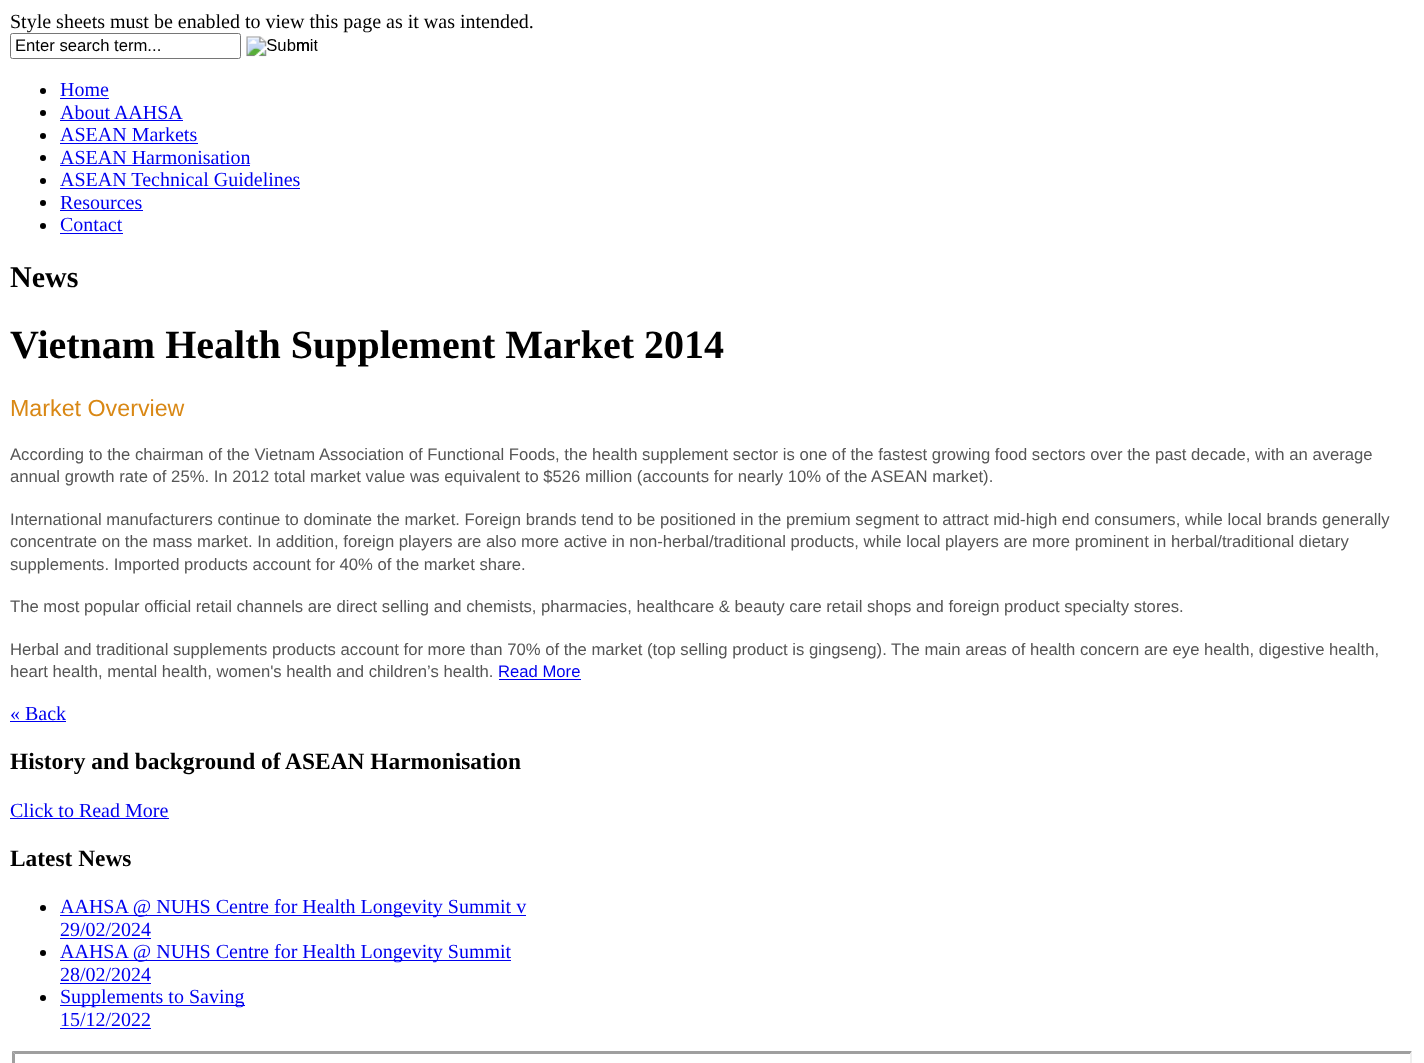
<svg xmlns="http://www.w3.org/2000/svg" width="1424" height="1063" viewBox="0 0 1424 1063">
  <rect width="100%" height="100%" fill="#fff"/>
  <rect x="10.5" y="33.5" width="230" height="25" rx="2" fill="none" stroke="#767676"/>
  <image x="246" y="36" width="72" height="21" href="img/1.png"/>
  <circle cx="43" cy="91" r="3" fill="#000"/>
  <path d="M60 98h49v1H60z" fill="#00e"/>
  <circle cx="43" cy="113" r="3" fill="#000"/>
  <path d="M60 120h123v1H60z" fill="#00e"/>
  <circle cx="43" cy="136" r="3" fill="#000"/>
  <path d="M60 143h138v1H60z" fill="#00e"/>
  <circle cx="43" cy="158" r="3" fill="#000"/>
  <path d="M60 165h190v1H60z" fill="#00e"/>
  <circle cx="43" cy="181" r="3" fill="#000"/>
  <path d="M60 188h240v1H60z" fill="#00e"/>
  <circle cx="43" cy="203" r="3" fill="#000"/>
  <path d="M60 210h83v1H60z" fill="#00e"/>
  <circle cx="43" cy="226" r="3" fill="#000"/>
  <path d="M60 233h63v1H60z" fill="#00e"/>
  <path d="M499 679h82v1H499z" fill="#00e"/>
  <path d="M10 721h56v1H10z" fill="#00e"/>
  <path d="M10 818h159v1H10z" fill="#00e"/>
  <circle cx="43" cy="908" r="3" fill="#000"/>
  <path d="M60 915h466v1H60z" fill="#00e"/>
  <path d="M60 938h91v1H60z" fill="#00e"/>
  <circle cx="43" cy="953" r="3" fill="#000"/>
  <path d="M60 960h451v1H60z" fill="#00e"/>
  <path d="M60 983h91v1H60z" fill="#00e"/>
  <circle cx="43" cy="998" r="3" fill="#000"/>
  <path d="M60 1005h185v1H60z" fill="#00e"/>
  <path d="M60 1028h91v1H60z" fill="#00e"/>
  <path d="M12 1051H1412L1410 1054H15Z" fill="#9f9f9f"/>
  <path d="M1412 1051V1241L1410 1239V1054Z" fill="#efefef"/>
  <path d="M12 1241V1051L15 1054V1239Z" fill="#9f9f9f"/>
  <text x="10" y="28" font-family="Liberation Serif" font-size="20" fill="#000">Style sheets must be enabled to view this page as it was intended.</text>
  <g font-family="Liberation Sans" font-size="16.67" fill="#000">
    <text x="15" y="51">Enter search term...</text>
    <text x="296" y="51">m</text>
  </g>
  <g font-family="Liberation Serif" font-size="20" fill="#00e">
    <text x="60" y="96">Home</text>
    <text x="60" y="119">About AAHSA</text>
    <text x="60" y="141">ASEAN Markets</text>
    <text x="60" y="164">ASEAN Harmonisation</text>
    <text x="60" y="186">ASEAN Technical Guidelines</text>
    <text x="60" y="209">Resources</text>
    <text x="60" y="231">Contact</text>
  </g>
  <text x="10" y="287" font-family="Liberation Serif" font-size="30" font-weight="bold" fill="#000">News</text>
  <text x="10" y="358" font-family="Liberation Serif" font-size="40" font-weight="bold" fill="#000">Vietnam Health Supplement Market 2014</text>
  <text x="10" y="416" font-family="Liberation Sans" font-size="23.25" fill="#d98815">Market Overview</text>
  <g font-family="Liberation Sans" font-size="16.67" fill="#565656">
    <text x="10" y="460">According to the chairman of the Vietnam Association of Functional Foods, the health supplement sector is one of the fastest growing food sectors over the past decade, with an average</text>
    <text x="10" y="482">annual growth rate of 25%. In 2012 total market value was equivalent to $526 million (accounts for nearly 10% of the ASEAN market).</text>
    <text x="10" y="525">International manufacturers continue to dominate the market. Foreign brands tend to be positioned in the premium segment to attract mid-high end consumers, while local brands generally</text>
    <text x="10" y="547">concentrate on the mass market. In addition, foreign players are also more active in non-herbal/traditional products, while local players are more prominent in herbal/traditional dietary</text>
    <text x="10" y="570">supplements. Imported products account for 40% of the market share.</text>
    <text x="10" y="612">The most popular official retail channels are direct selling and chemists, pharmacies, healthcare &amp; beauty care retail shops and foreign product specialty stores.</text>
    <text x="10" y="655">Herbal and traditional supplements products account for more than 70% of the market (top selling product is gingseng). The main areas of health concern are eye health, digestive health,</text>
    <text x="10" y="677">heart health, mental health, women's health and children’s health.</text>
  </g>
  <text x="498" y="677" font-family="Liberation Sans" font-size="16.67" fill="#00e">Read More</text>
  <text x="10" y="720" font-family="Liberation Serif" font-size="20" fill="#00e">« Back</text>
  <text x="10" y="769" font-family="Liberation Serif" font-size="23.4" font-weight="bold" fill="#000">History and background of ASEAN Harmonisation</text>
  <text x="10" y="817" font-family="Liberation Serif" font-size="20" fill="#00e">Click to Read More</text>
  <text x="10" y="866" font-family="Liberation Serif" font-size="23.4" font-weight="bold" fill="#000">Latest News</text>
  <g font-family="Liberation Serif" font-size="20" fill="#00e">
    <text x="60" y="913">AAHSA @ NUHS Centre for Health Longevity Summit v</text>
    <text x="60" y="936">29/02/2024</text>
    <text x="60" y="958">AAHSA @ NUHS Centre for Health Longevity Summit</text>
    <text x="60" y="981">28/02/2024</text>
    <text x="60" y="1003">Supplements to Saving</text>
    <text x="60" y="1026">15/12/2022</text>
  </g>
</svg>
